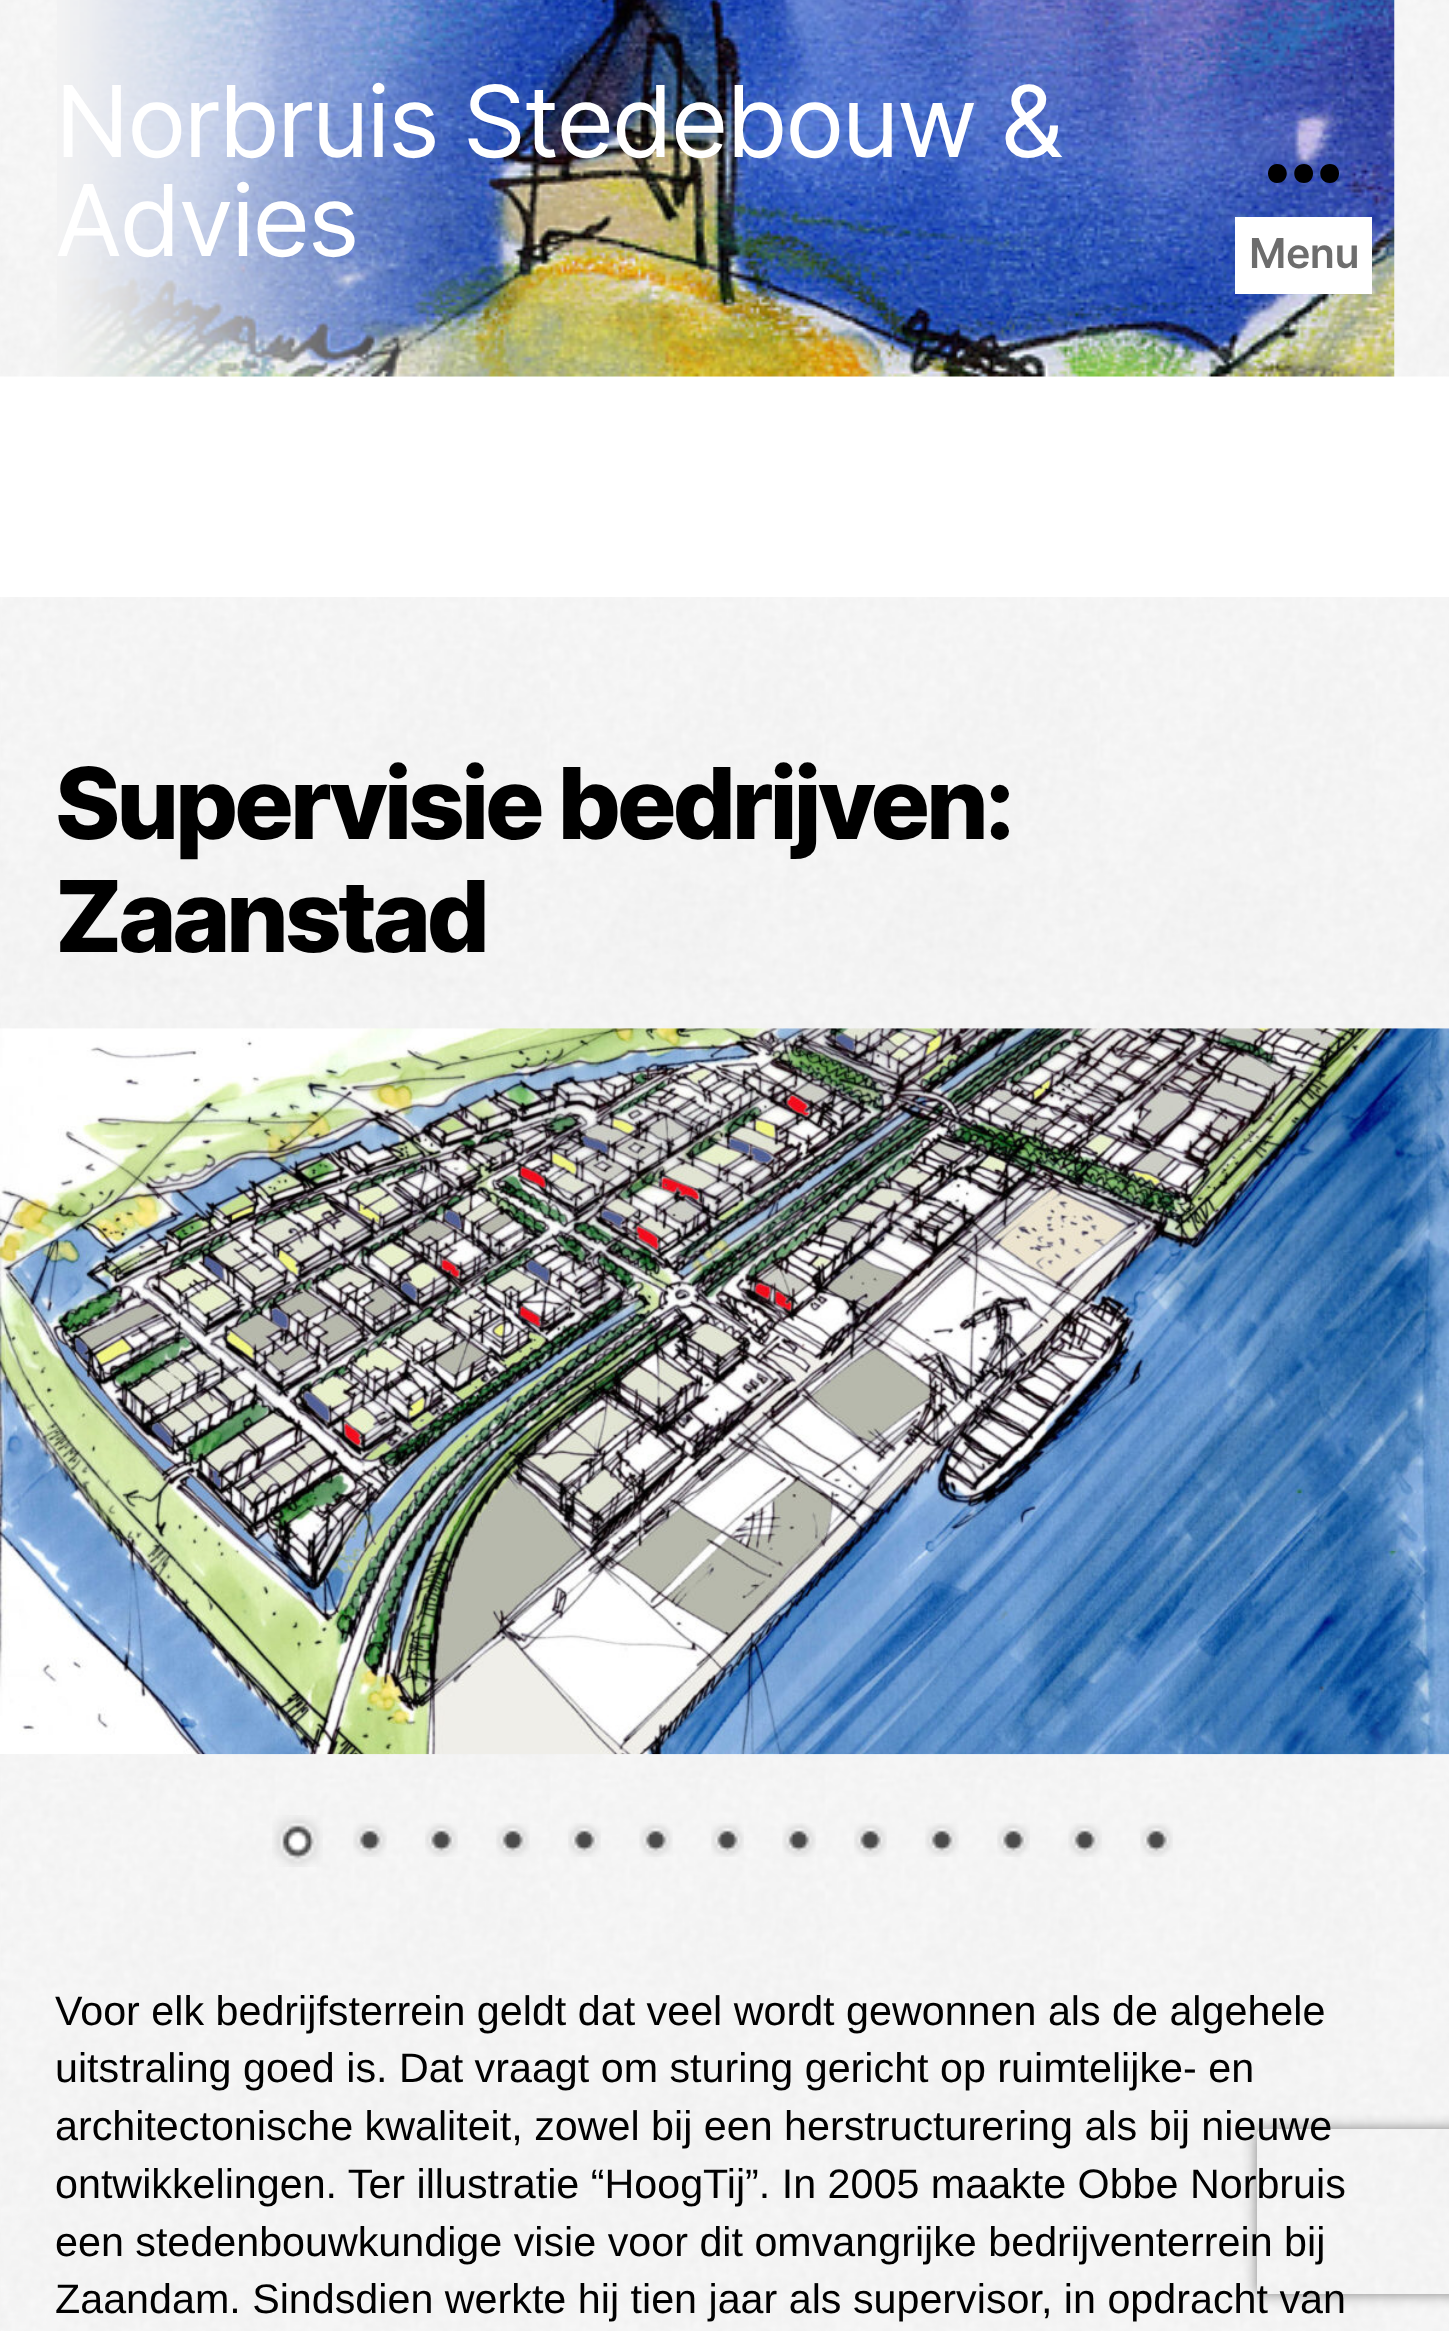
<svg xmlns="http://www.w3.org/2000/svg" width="1449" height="2331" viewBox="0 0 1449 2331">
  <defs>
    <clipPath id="clip1"><path d="M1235 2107H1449V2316H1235ZM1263 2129H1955C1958.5 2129 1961 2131.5 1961 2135V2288C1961 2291.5 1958.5 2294 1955 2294H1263C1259.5 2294 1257 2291.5 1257 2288V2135C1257 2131.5 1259.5 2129 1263 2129Z" clip-rule="evenodd"/></clipPath>
  </defs>
  <rect width="100%" height="100%" fill="#fff"/>
  <image x="0" y="597" width="1449" height="1734" href="img/1.png"/>
  <image x="0" y="0" width="1449" height="377" href="img/2.png"/>
  <image x="57" y="0" width="1338" height="377" href="img/3.png"/>
  <path d="M1277 183C1265 183 1265 164 1277 164C1290 164 1290 183 1277 183ZM1304 183C1291 183 1291 164 1304 164C1316 164 1316 183 1304 183ZM1330 183C1317 183 1317 164 1330 164C1342 164 1342 183 1330 183Z" fill="#000" fill-rule="evenodd"/>
  <path d="M1235 217h137v77H1235z" fill="#fff"/>
  <image x="0" y="1028" width="1449" height="727" href="img/4.png"/>
  <image x="272" y="1815" width="51" height="52" href="img/5.png"/>
  <image x="353" y="1823" width="34" height="34" href="img/6.png"/>
  <image x="425" y="1823" width="33" height="34" href="img/7.png"/>
  <image x="496" y="1823" width="34" height="34" href="img/8.png"/>
  <image x="568" y="1823" width="33" height="34" href="img/9.png"/>
  <image x="639" y="1823" width="34" height="34" href="img/10.png"/>
  <image x="711" y="1823" width="33" height="34" href="img/11.png"/>
  <image x="782" y="1823" width="34" height="34" href="img/12.png"/>
  <image x="854" y="1823" width="33" height="34" href="img/13.png"/>
  <image x="925" y="1823" width="34" height="34" href="img/14.png"/>
  <image x="997" y="1823" width="33" height="34" href="img/15.png"/>
  <image x="1068" y="1823" width="34" height="34" href="img/16.png"/>
  <image x="1140" y="1823" width="33" height="34" href="img/17.png"/>
  <g clip-path="url(#clip1)">
    <rect x="1257" y="2129" width="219" height="165" rx="6" fill="#808080" filter="blur(7px)"/>
  </g>
  <g font-family="Inter" font-size="99" letter-spacing="-2.4" fill="#fff">
    <text x="55" y="157">Norbruis Stedebouw &amp;</text>
    <text x="55" y="256">Advies</text>
  </g>
  <text x="1249" y="268" font-family="Inter" font-size="41.25" font-weight="600" letter-spacing="-0.5" fill="#6d6d6d">Menu</text>
  <g font-family="Inter" font-size="99" font-weight="800" letter-spacing="-4.1" fill="#000">
    <text x="55" y="839">Supervisie bedrijven:</text>
    <text x="55" y="952">Zaanstad</text>
  </g>
  <g font-family="Liberation Sans" font-size="41.25" fill="#000">
    <text x="55" y="2025">Voor elk bedrijfsterrein geldt dat veel wordt gewonnen als de algehele</text>
    <text x="55" y="2082">uitstraling goed is. Dat vraagt om sturing gericht op ruimtelijke- en</text>
    <text x="55" y="2140">architectonische kwaliteit, zowel bij een herstructurering als bij nieuwe</text>
    <text x="55" y="2198">ontwikkelingen. Ter illustratie “HoogTij”. In 2005 maakte Obbe Norbruis</text>
    <text x="55" y="2256">een stedenbouwkundige visie voor dit omvangrijke bedrijventerrein bij</text>
    <text x="55" y="2313">Zaandam. Sindsdien werkte hij tien jaar als supervisor, in opdracht van</text>
  </g>
</svg>
